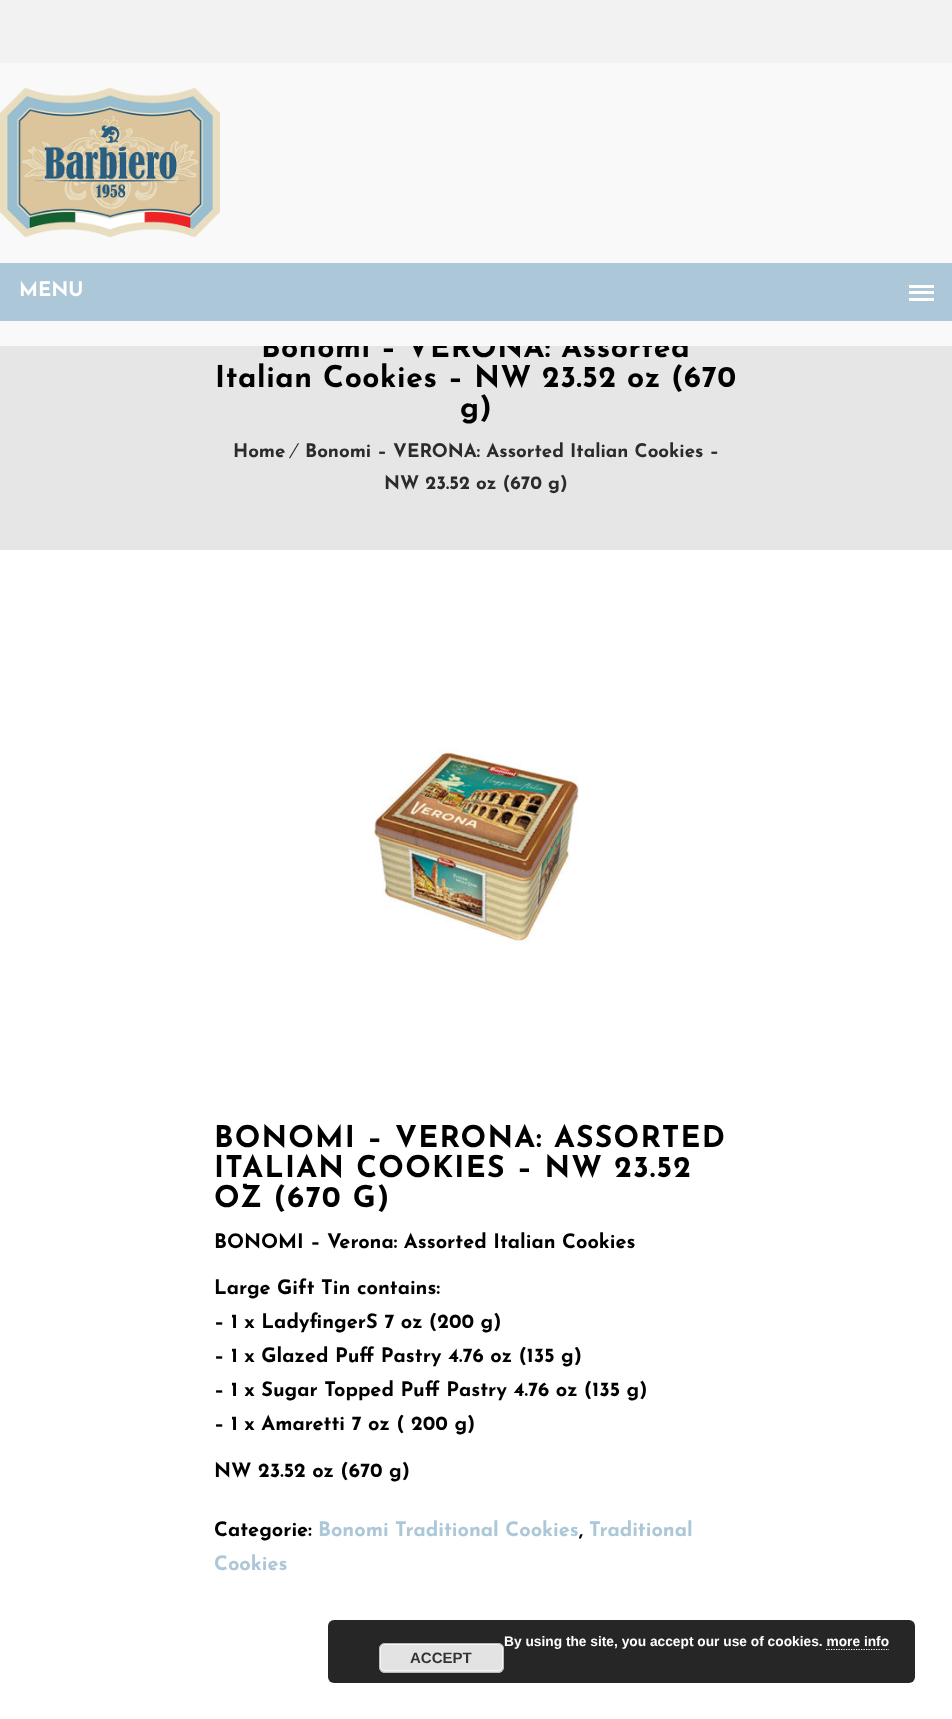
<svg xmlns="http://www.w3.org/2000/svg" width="952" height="1719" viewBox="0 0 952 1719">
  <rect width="100%" height="100%" fill="#fff"/>
  <path d="M0 0h952v63H0z" fill="#f2f2f2"/>
  <path d="M0 346h952v204H0z" fill="#e6e6e6"/>
  <path d="M298 443L299 443.5L290 458.5L289 458Z" fill="#2b2b2b"/>
  <image x="373" y="748" width="207" height="196" href="img/2.png"/>
  <rect x="328" y="1620" width="587" height="63" rx="6" fill="#262626"/>
  <path d="M826 1649.5H889" fill="none" stroke="#fff" stroke-width="1.2" stroke-dasharray="1.25 1.25"/>
  <rect x="379" y="1643" width="125" height="30" rx="6" fill="#e3e3e3"/>
  <rect x="380.5" y="1644.5" width="122" height="26" rx="4.5" fill="none" stroke="#f6f6f6"/>
  <rect x="379.5" y="1643.5" width="124" height="29" rx="5.5" fill="none" stroke="#bbb"/>
  <text x="261" y="357" font-family="Josefin Sans" font-size="30" font-weight="bold" letter-spacing="0.6" fill="#000">Bonomi – VERONA: Assorted</text>
  <path d="M0 63h952v283H0z" fill="#f9f9f9"/>
  <path d="M0 263h952v58H0z" fill="#acc7d7"/>
  <path d="M909 298h25v3H909z" fill="#fff"/>
  <path d="M909 285h25v3H909z" fill="#fff"/>
  <path d="M909 291h25v3H909z" fill="#fff"/>
  <text x="19" y="296" font-family="Josefin Sans" font-size="20" font-weight="bold" fill="#fff">MENU</text>
  <image x="0" y="87" width="220" height="151" href="img/1.png"/>
  <g font-family="Josefin Sans" font-size="30" font-weight="bold" letter-spacing="0.6" fill="#000">
    <text x="215" y="387">Italian Cookies – NW 23.52 oz (670</text>
    <text x="460" y="417">g)</text>
  </g>
  <g font-family="Josefin Sans" font-size="18.75" font-weight="bold" fill="#2b2b2b">
    <text x="233" y="457">Home</text>
    <text x="305" y="457">Bonomi – VERONA: Assorted Italian Cookies –</text>
    <text x="384" y="489">NW 23.52 oz (670 g)</text>
  </g>
  <g font-family="Josefin Sans" font-size="30" font-weight="bold" letter-spacing="1.25" fill="#000">
    <text x="214" y="1147">BONOMI – VERONA: ASSORTED</text>
    <text x="214" y="1177">ITALIAN COOKIES – NW 23.52</text>
    <text x="214" y="1207">OZ (670 G)</text>
  </g>
  <g font-family="Josefin Sans" font-size="20" font-weight="bold" fill="#000">
    <text x="214" y="1248">BONOMI – Verona: Assorted Italian Cookies</text>
    <text x="214" y="1294">Large Gift Tin contains:</text>
    <text x="214" y="1328">– 1 x LadyfingerS 7 oz (200 g)</text>
    <text x="214" y="1362">– 1 x Glazed Puff Pastry 4.76 oz (135 g)</text>
    <text x="214" y="1396">– 1 x Sugar Topped Puff Pastry 4.76 oz (135 g)</text>
    <text x="214" y="1430">– 1 x Amaretti 7 oz ( 200 g)</text>
    <text x="214" y="1477">NW 23.52 oz (670 g)</text>
    <text x="214" y="1536">Categorie:</text>
  </g>
  <text x="318" y="1536" font-family="Josefin Sans" font-size="20" font-weight="bold" fill="#acc7d7">Bonomi Traditional Cookies</text>
  <text x="579" y="1536" font-family="Josefin Sans" font-size="20" font-weight="bold" fill="#000">,</text>
  <g font-family="Josefin Sans" font-size="20" font-weight="bold" fill="#acc7d7">
    <text x="589" y="1536">Traditional</text>
    <text x="214" y="1570">Cookies</text>
  </g>
  <text x="504" y="1646" font-family="Liberation Sans" font-size="13.75" font-weight="bold" fill="#fff">By using the site, you accept our use of cookies. more info</text>
  <text x="410" y="1663" font-family="Liberation Sans" font-size="15" font-weight="bold" fill="#333">ACCEPT</text>
</svg>
